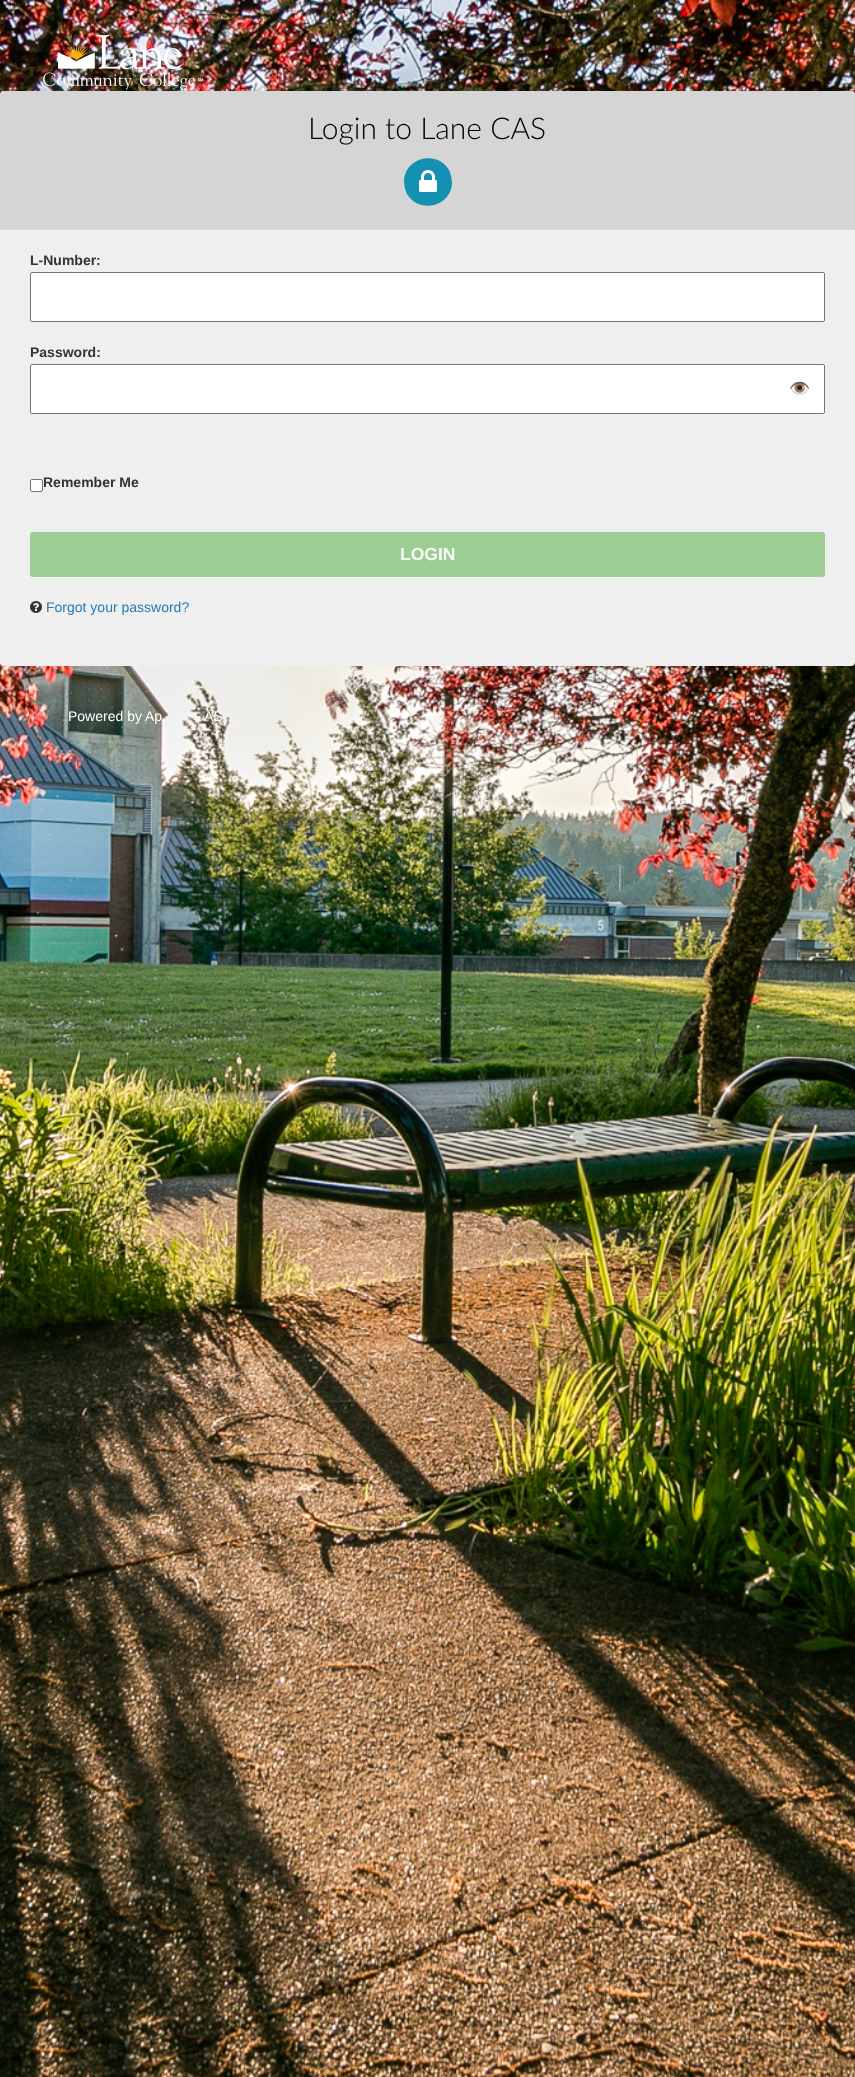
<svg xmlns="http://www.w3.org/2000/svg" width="855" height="2077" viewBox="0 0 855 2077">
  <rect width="100%" height="100%" fill="#fff"/>
  <image x="0" y="0" width="855" height="2077" href="img/1.png"/>
  <image x="43" y="35" width="161" height="55" href="img/2.png"/>
  <rect y="91" width="855" height="575" rx="4" fill="#efefef"/>
  <path d="M4 91H851C853 91 855 93 855 95V230H0V95C0 93 2 91 4 91Z" fill="#d5d5d5"/>
  <path d="M449 170C451 174 452 179 452 184C450 207 419 214 407 194C405 190 404 185 404 180C406 157 437 150 449 170Z" fill="#1490b3"/>
  <image x="419" y="170" width="18" height="22" href="img/3.png"/>
  <rect x="30.5" y="272.5" width="794" height="49" rx="1.5" fill="#fff" stroke="#767676"/>
  <rect x="30.5" y="364.5" width="794" height="49" rx="1.5" fill="#fff" stroke="#767676"/>
  <rect x="30.5" y="479.5" width="12" height="12" rx="1.5" fill="#fff" stroke="#767676"/>
  <rect x="30" y="532" width="795" height="45" rx="3" fill="#9ccd93"/>
  <image x="30" y="601" width="12" height="12" href="img/4.png"/>
  <text x="308" y="139" font-family="Lato" font-size="30" font-weight="300" fill="#000">Login to Lane CAS</text>
  <g font-family="Liberation Sans" font-size="14" font-weight="bold" fill="#333">
    <text x="30" y="265">L-Number:</text>
    <text x="30" y="357">Password:</text>
  </g>
  <text x="789" y="394" font-family="Noto Color Emoji" font-size="17" fill="#888">👁️</text>
  <text x="43" y="487" font-family="Liberation Sans" font-size="14" font-weight="bold" fill="#333">Remember Me</text>
  <text x="400" y="560" font-family="Liberation Sans" font-size="17.5" font-weight="bold" fill="#f9f9f9">LOGIN</text>
  <text x="46" y="612" font-family="Liberation Sans" font-size="14" fill="#257bb2">Forgot your password?</text>
  <g font-family="Liberation Sans" font-size="14" fill="#fff">
    <text x="68" y="721">Powered by</text>
    <text x="145" y="721">Ap</text>
    <text x="204" y="721">AS</text>
  </g>
</svg>
